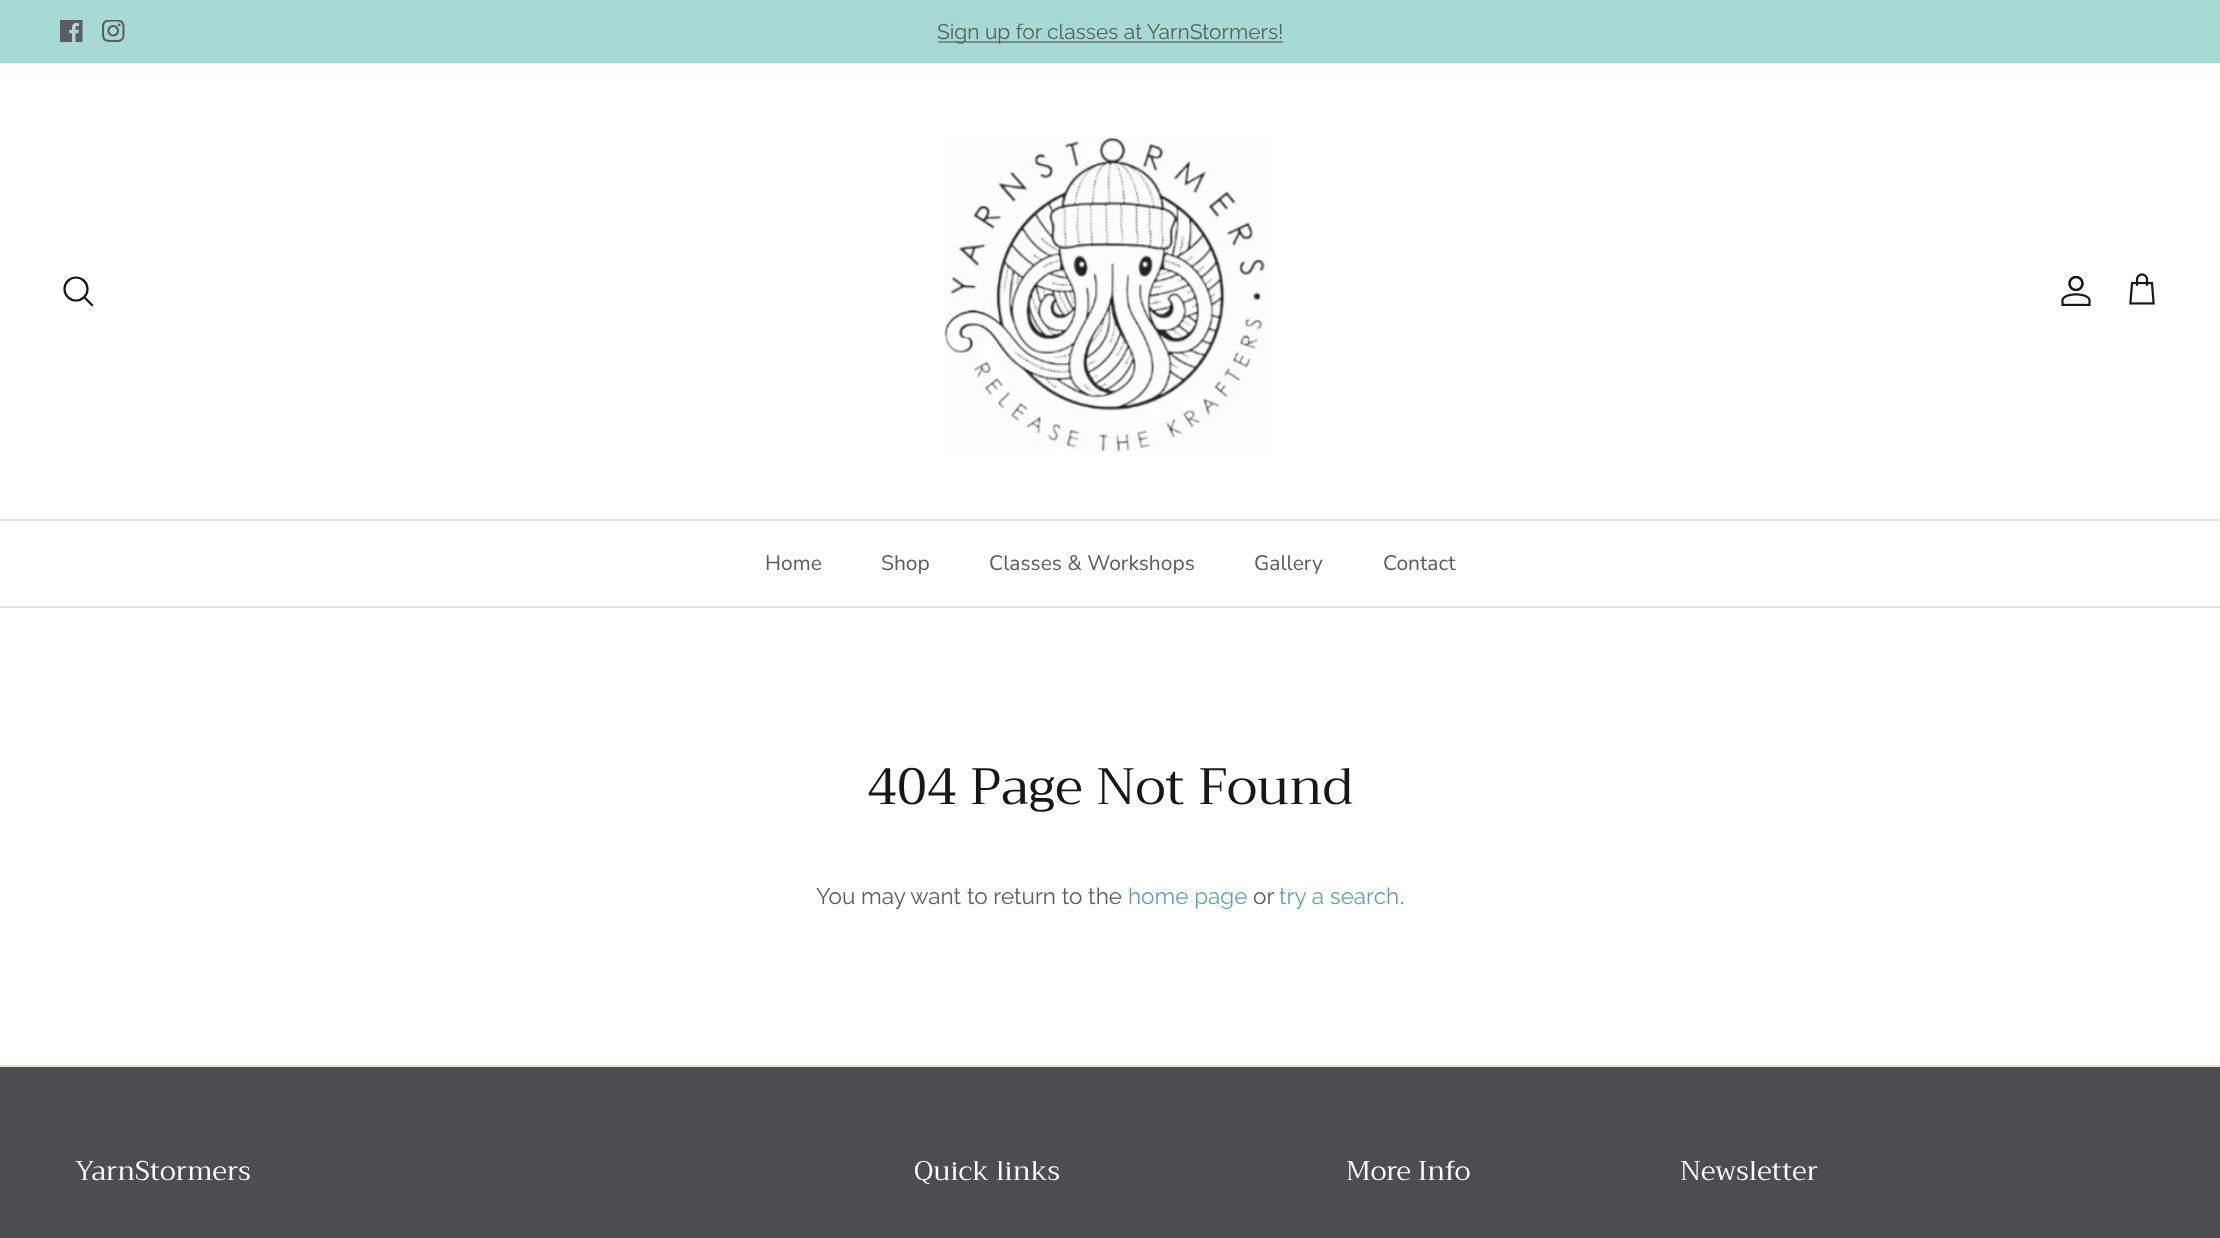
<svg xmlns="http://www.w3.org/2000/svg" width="2220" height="1238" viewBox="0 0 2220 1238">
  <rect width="100%" height="100%" fill="#fff"/>
  <path d="M0 0h2220v63H0z" fill="#a6dad5"/>
  <image x="60" y="20" width="23" height="22" href="img/1.png"/>
  <image x="102" y="20" width="23" height="22" href="img/2.png"/>
  <path d="M938 41h345v2H938z" fill="#7a8e8c"/>
  <path d="M0 519h2220v2H0z" fill="#dfe3e8"/>
  <circle cx="76" cy="289" r="11.5" fill="none" stroke="#171717" stroke-width="2.2"/>
  <path d="M85.5 298.5L92 305" fill="none" stroke="#171717" stroke-width="2.2" stroke-linecap="square"/>
  <image x="944" y="137" width="322" height="316" href="img/3.png"/>
  <image x="2061" y="275" width="30" height="31" href="img/4.png"/>
  <image x="2129" y="273" width="26" height="32" href="img/5.png"/>
  <path d="M0 606h2220v2H0z" fill="#dfe3e8"/>
  <path d="M0 1067h2220v171H0z" fill="#4c4d4f"/>
  <path d="M0 1065h2220v2H0z" fill="#efdfc7"/>
  <text x="937" y="39" font-family="Raleway" font-size="21" fill="#5c5c5c">Sign up for classes at YarnStormers!</text>
  <g font-family="Nunito Sans" font-size="21" fill="#5c5c5c">
    <text x="765" y="570">Home</text>
    <text x="881" y="570">Shop</text>
    <text x="989" y="570">Classes &amp; Workshops</text>
    <text x="1254" y="570">Gallery</text>
    <text x="1383" y="570">Contact</text>
  </g>
  <text x="867" y="804" font-family="Trirong" font-size="51" fill="#171717">404 Page Not Found</text>
  <text x="816" y="904" font-family="Raleway" font-size="22.5" fill="#5c5c5c">You may want to return to the</text>
  <text x="1128" y="904" font-family="Raleway" font-size="22.5" fill="#5ea2b6">home page</text>
  <text x="1253" y="904" font-family="Raleway" font-size="22.5" fill="#5c5c5c">or</text>
  <text x="1279" y="904" font-family="Raleway" font-size="22.5" fill="#5ea2b6">try a search</text>
  <text x="1400" y="904" font-family="Raleway" font-size="22.5" fill="#5c5c5c">.</text>
  <g font-family="Trirong" font-size="27" fill="#fff">
    <text x="75" y="1180">YarnStormers</text>
    <text x="914" y="1180">Quick links</text>
    <text x="1346" y="1180">More Info</text>
    <text x="1680" y="1180">Newsletter</text>
  </g>
</svg>
